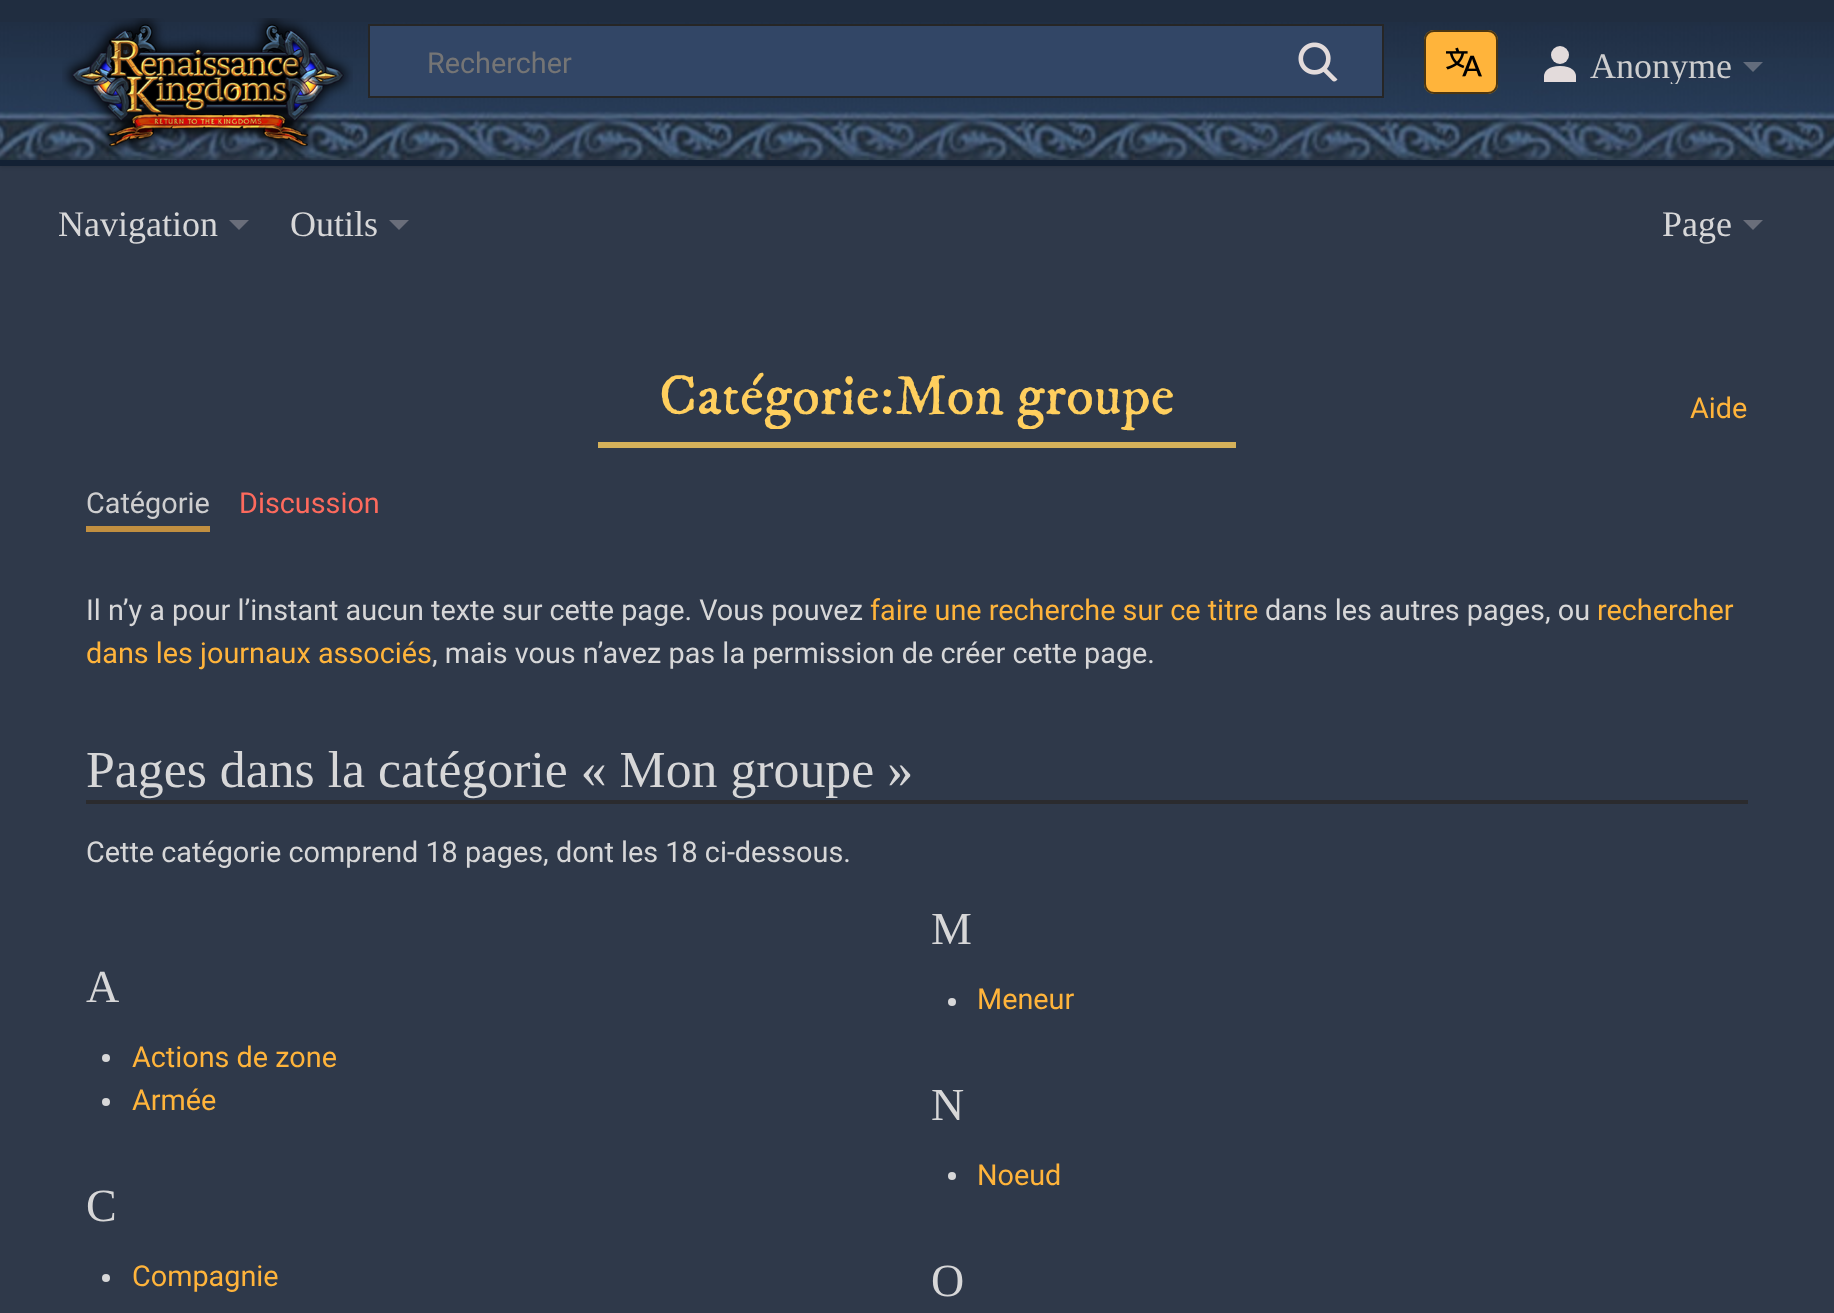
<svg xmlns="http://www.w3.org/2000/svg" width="1834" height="1313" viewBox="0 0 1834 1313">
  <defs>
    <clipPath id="clip1"><path d="M1590 48h142v36H1590z"/></clipPath>
  </defs>
  <rect width="100%" height="100%" fill="#2f394a"/>
  <path d="M0 0h1834v22H0z" fill="#202d40"/>
  <path d="M0 90h1834v76H0z" fill="#00000033" filter="blur(2px)"/>
  <image x="0" y="22" width="1834" height="138" href="img/1.png"/>
  <image x="62" y="18" width="291" height="138" href="img/2.png"/>
  <path d="M369 25h1014v72H369z" fill="#324666" stroke="#262626" stroke-width="2"/>
  <image x="1298" y="42" width="40" height="40" href="img/3.png"/>
  <rect x="1424" y="30" width="74" height="64" rx="10" fill="#ffb43b"/>
  <image x="1446" y="47" width="36" height="30" href="img/4.png"/>
  <rect x="1425" y="31" width="72" height="62" rx="9" fill="none" stroke="#000000b3" stroke-width="2"/>
  <path d="M1560 66C1548 66 1544 72 1544 76V82H1576V76C1576 72 1572 66 1560 66Z" fill="#e3dbdb"/>
  <circle cx="1560" cy="55" r="9" fill="#e3dbdb"/>
  <path d="M1763 62L1753 72L1743 62Z" fill="#636c7c"/>
  <path d="M0 160h1834v6H0z" fill="#132134"/>
  <path d="M249 220L239 230L229 220Z" fill="#6a6e7a"/>
  <path d="M409 220L399 230L389 220Z" fill="#6a6e7a"/>
  <path d="M1763 220L1753 230L1743 220Z" fill="#6a6e7a"/>
  <path d="M598 442h638v6H598z" fill="#d5b15a"/>
  <path d="M86 526h124v6H86z" fill="#c18f40"/>
  <path d="M86 800h1662v4H86z" fill="#2b2b2e"/>
  <circle cx="106" cy="1058" r="4" fill="#d7d7d8"/>
  <circle cx="106" cy="1102" r="4" fill="#d7d7d8"/>
  <circle cx="952" cy="1002" r="4" fill="#d7d7d8"/>
  <circle cx="952" cy="1176" r="4" fill="#d7d7d8"/>
  <circle cx="106" cy="1278" r="4" fill="#d7d7d8"/>
  <text x="427" y="73" font-family="Roboto" font-size="28.8" fill="#757575">Rechercher</text>
  <g clip-path="url(#clip1)">
    <text x="1590" y="78" font-family="Liberation Serif" font-size="36" fill="#cececf">Anonyme</text>
  </g>
  <g font-family="Liberation Serif" font-size="36" fill="#d7d7d8">
    <text x="58" y="236">Navigation</text>
    <text x="290" y="236">Outils</text>
    <text x="1662" y="236">Page</text>
  </g>
  <text x="659" y="414" font-family="IM FELL DW Pica" font-size="57.5" fill="#ffcf5e">Catégorie:Mon groupe</text>
  <text x="1690" y="418" font-family="Roboto" font-size="28.8" fill="#ffb43b">Aide</text>
  <text x="86" y="513" font-family="Roboto" font-size="28.8" fill="#cececf">Catégorie</text>
  <text x="239" y="513" font-family="Roboto" font-size="28.8" fill="#fd6a5d">Discussion</text>
  <text x="86" y="620" font-family="Roboto" font-size="28.8" fill="#d7d7d8">Il n’y a pour l’instant aucun texte sur cette page. Vous pouvez</text>
  <text x="870" y="620" font-family="Roboto" font-size="28.8" fill="#ffb43b">faire une recherche sur ce titre</text>
  <text x="1265" y="620" font-family="Roboto" font-size="28.8" fill="#d7d7d8">dans les autres pages, ou</text>
  <g font-family="Roboto" font-size="28.8" fill="#ffb43b">
    <text x="1597" y="620">rechercher</text>
    <text x="86" y="663">dans les journaux associés</text>
  </g>
  <text x="432" y="663" font-family="Roboto" font-size="28.8" fill="#d7d7d8">, mais vous n’avez pas la permission de créer cette page.</text>
  <text x="86" y="787" font-family="Liberation Serif" font-size="51.8" fill="#d7d7d8">Pages dans la catégorie « Mon groupe »</text>
  <text x="86" y="862" font-family="Roboto" font-size="28.8" fill="#d7d7d8">Cette catégorie comprend 18 pages, dont les 18 ci-dessous.</text>
  <text x="86" y="1002" font-family="Liberation Serif" font-size="46" fill="#d7d7d8">A</text>
  <g font-family="Roboto" font-size="28.8" fill="#ffb43b">
    <text x="132" y="1067">Actions de zone</text>
    <text x="132" y="1110">Armée</text>
  </g>
  <text x="931" y="944" font-family="Liberation Serif" font-size="46" fill="#d7d7d8">M</text>
  <text x="977" y="1009" font-family="Roboto" font-size="28.8" fill="#ffb43b">Meneur</text>
  <text x="931" y="1120" font-family="Liberation Serif" font-size="46" fill="#d7d7d8">N</text>
  <text x="977" y="1185" font-family="Roboto" font-size="28.8" fill="#ffb43b">Noeud</text>
  <text x="86" y="1221" font-family="Liberation Serif" font-size="46" fill="#d7d7d8">C</text>
  <text x="132" y="1286" font-family="Roboto" font-size="28.8" fill="#ffb43b">Compagnie</text>
  <text x="931" y="1296" font-family="Liberation Serif" font-size="46" fill="#d7d7d8">O</text>
</svg>
